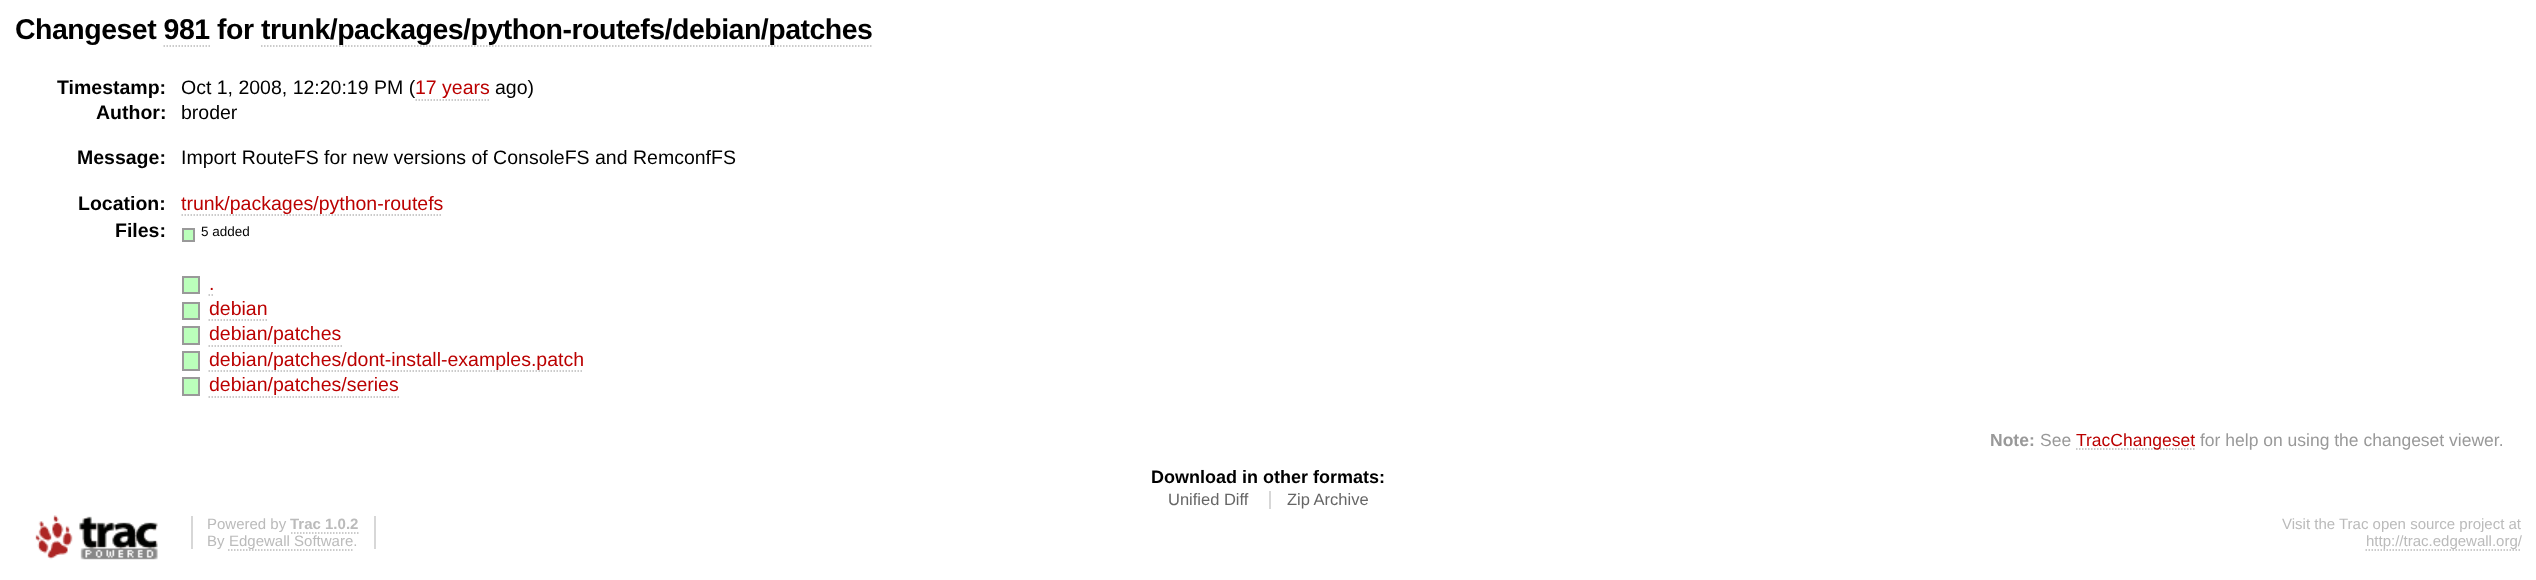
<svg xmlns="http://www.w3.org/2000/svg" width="2536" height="580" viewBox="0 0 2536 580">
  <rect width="100%" height="100%" fill="#fff"/>
  <path d="M261 46H871.5" fill="none" stroke="#bbb" stroke-width="1.5" stroke-dasharray="1.5 1.5"/>
  <path d="M415.5 100H489" fill="none" stroke="#bbb" stroke-width="1.5" stroke-dasharray="1.5 1.5"/>
  <path d="M181.5 215H442.5" fill="none" stroke="#bbb" stroke-width="1.5" stroke-dasharray="1.5 1.5"/>
  <path d="M183 229h11v12H183z" fill="#bfb" stroke="#999" stroke-width="2"/>
  <path d="M183 277h16v16H183z" fill="#bfb" stroke="#999" stroke-width="2"/>
  <path d="M208.5 295H210M211.5 295H213" fill="none" stroke="#bbb" stroke-width="1.5"/>
  <path d="M183 303h16v16H183z" fill="#bfb" stroke="#999" stroke-width="2"/>
  <path d="M208.5 320H267" fill="none" stroke="#bbb" stroke-width="1.5" stroke-dasharray="1.5 1.5"/>
  <path d="M183 327h16v17H183z" fill="#bfb" stroke="#999" stroke-width="2"/>
  <path d="M208.5 346H342" fill="none" stroke="#bbb" stroke-width="1.5" stroke-dasharray="1.5 1.5"/>
  <path d="M183 352h16v18H183z" fill="#bfb" stroke="#999" stroke-width="2"/>
  <path d="M208.5 371H583.5" fill="none" stroke="#bbb" stroke-width="1.5" stroke-dasharray="1.5 1.5"/>
  <path d="M183 378h16v17H183z" fill="#bfb" stroke="#999" stroke-width="2"/>
  <path d="M208.5 397H399" fill="none" stroke="#bbb" stroke-width="1.5" stroke-dasharray="1.5 1.5"/>
  <path d="M2076 449H2194.5" fill="none" stroke="#bbb" stroke-width="1.5" stroke-dasharray="1.5 1.5"/>
  <path d="M1269 491h2v18H1269z" fill="#d7d7d7"/>
  <image x="35" y="515" width="123" height="45" href="img/1.png"/>
  <path d="M374 516h2v33H374z" fill="#d7d7d7"/>
  <path d="M191 516h2v33H191z" fill="#d7d7d7"/>
  <path d="M291 533H358.5" fill="none" stroke="#bbb" stroke-width="1.5" stroke-dasharray="1.5 1.5"/>
  <path d="M228 550H352.5" fill="none" stroke="#bbb" stroke-width="1.5" stroke-dasharray="1.5 1.5"/>
  <path d="M2365.5 550H2521.5" fill="none" stroke="#bbb" stroke-width="1.5" stroke-dasharray="1.5 1.5"/>
  <g font-family="Liberation Sans" font-size="28.5" font-weight="bold" letter-spacing="-0.5" fill="#000">
    <text x="15" y="39">Changeset 981 for</text>
    <text x="261" y="39">trunk/packages/python-routefs/debian/patches</text>
  </g>
  <path d="M163.5 46H210" fill="none" stroke="#bbb" stroke-width="1.5" stroke-dasharray="1.5 1.5"/>
  <text x="57" y="94" font-family="Liberation Sans" font-size="19.5" font-weight="bold" fill="#000">Timestamp:</text>
  <text x="181" y="94" font-family="Liberation Sans" font-size="19.5" fill="#000">Oct 1, 2008, 12:20:19 PM (</text>
  <text x="415" y="94" font-family="Liberation Sans" font-size="19.5" fill="#b00">17 years</text>
  <text x="495" y="94" font-family="Liberation Sans" font-size="19.5" fill="#000">ago)</text>
  <text x="96" y="119" font-family="Liberation Sans" font-size="19.5" font-weight="bold" fill="#000">Author:</text>
  <text x="181" y="119" font-family="Liberation Sans" font-size="19.5" fill="#000">broder</text>
  <text x="77" y="164" font-family="Liberation Sans" font-size="19.5" font-weight="bold" fill="#000">Message:</text>
  <text x="181" y="164" font-family="Liberation Sans" font-size="19.5" fill="#000">Import RouteFS for new versions of ConsoleFS and RemconfFS</text>
  <text x="78" y="210" font-family="Liberation Sans" font-size="19.5" font-weight="bold" fill="#000">Location:</text>
  <text x="181" y="210" font-family="Liberation Sans" font-size="19.5" fill="#b00">trunk/packages/python-routefs</text>
  <text x="115" y="237" font-family="Liberation Sans" font-size="19.5" font-weight="bold" fill="#000">Files:</text>
  <text x="201" y="236" font-family="Liberation Sans" font-size="13.5" fill="#000">5 added</text>
  <g font-family="Liberation Sans" font-size="19.5" fill="#b00">
    <text x="209" y="290">.</text>
    <text x="209" y="315">debian</text>
    <text x="209" y="340">debian/patches</text>
    <text x="209" y="366">debian/patches/dont-install-examples.patch</text>
    <text x="209" y="391">debian/patches/series</text>
  </g>
  <text x="1990" y="446" font-family="Liberation Sans" font-size="17.5" font-weight="bold" fill="#999">Note:</text>
  <text x="2040" y="446" font-family="Liberation Sans" font-size="17.5" fill="#999">See</text>
  <text x="2076" y="446" font-family="Liberation Sans" font-size="17.5" fill="#b00">TracChangeset</text>
  <text x="2200" y="446" font-family="Liberation Sans" font-size="17.5" fill="#999">for help on using the changeset viewer.</text>
  <text x="1151" y="483" font-family="Liberation Sans" font-size="18" font-weight="bold" fill="#000">Download in other formats:</text>
  <g font-family="Liberation Sans" font-size="16.5" fill="#666">
    <text x="1168" y="505">Unified Diff</text>
    <text x="1287" y="505">Zip Archive</text>
  </g>
  <text x="207" y="529" font-family="Liberation Sans" font-size="15" fill="#bbb">Powered by</text>
  <text x="290" y="529" font-family="Liberation Sans" font-size="15" font-weight="bold" fill="#bbb">Trac 1.0.2</text>
  <g font-family="Liberation Sans" font-size="15" fill="#bbb">
    <text x="207" y="546">By</text>
    <text x="229" y="546">Edgewall Software.</text>
    <text x="2282" y="529">Visit the Trac open source project at</text>
    <text x="2366" y="546">http://trac.edgewall.org/</text>
  </g>
</svg>
